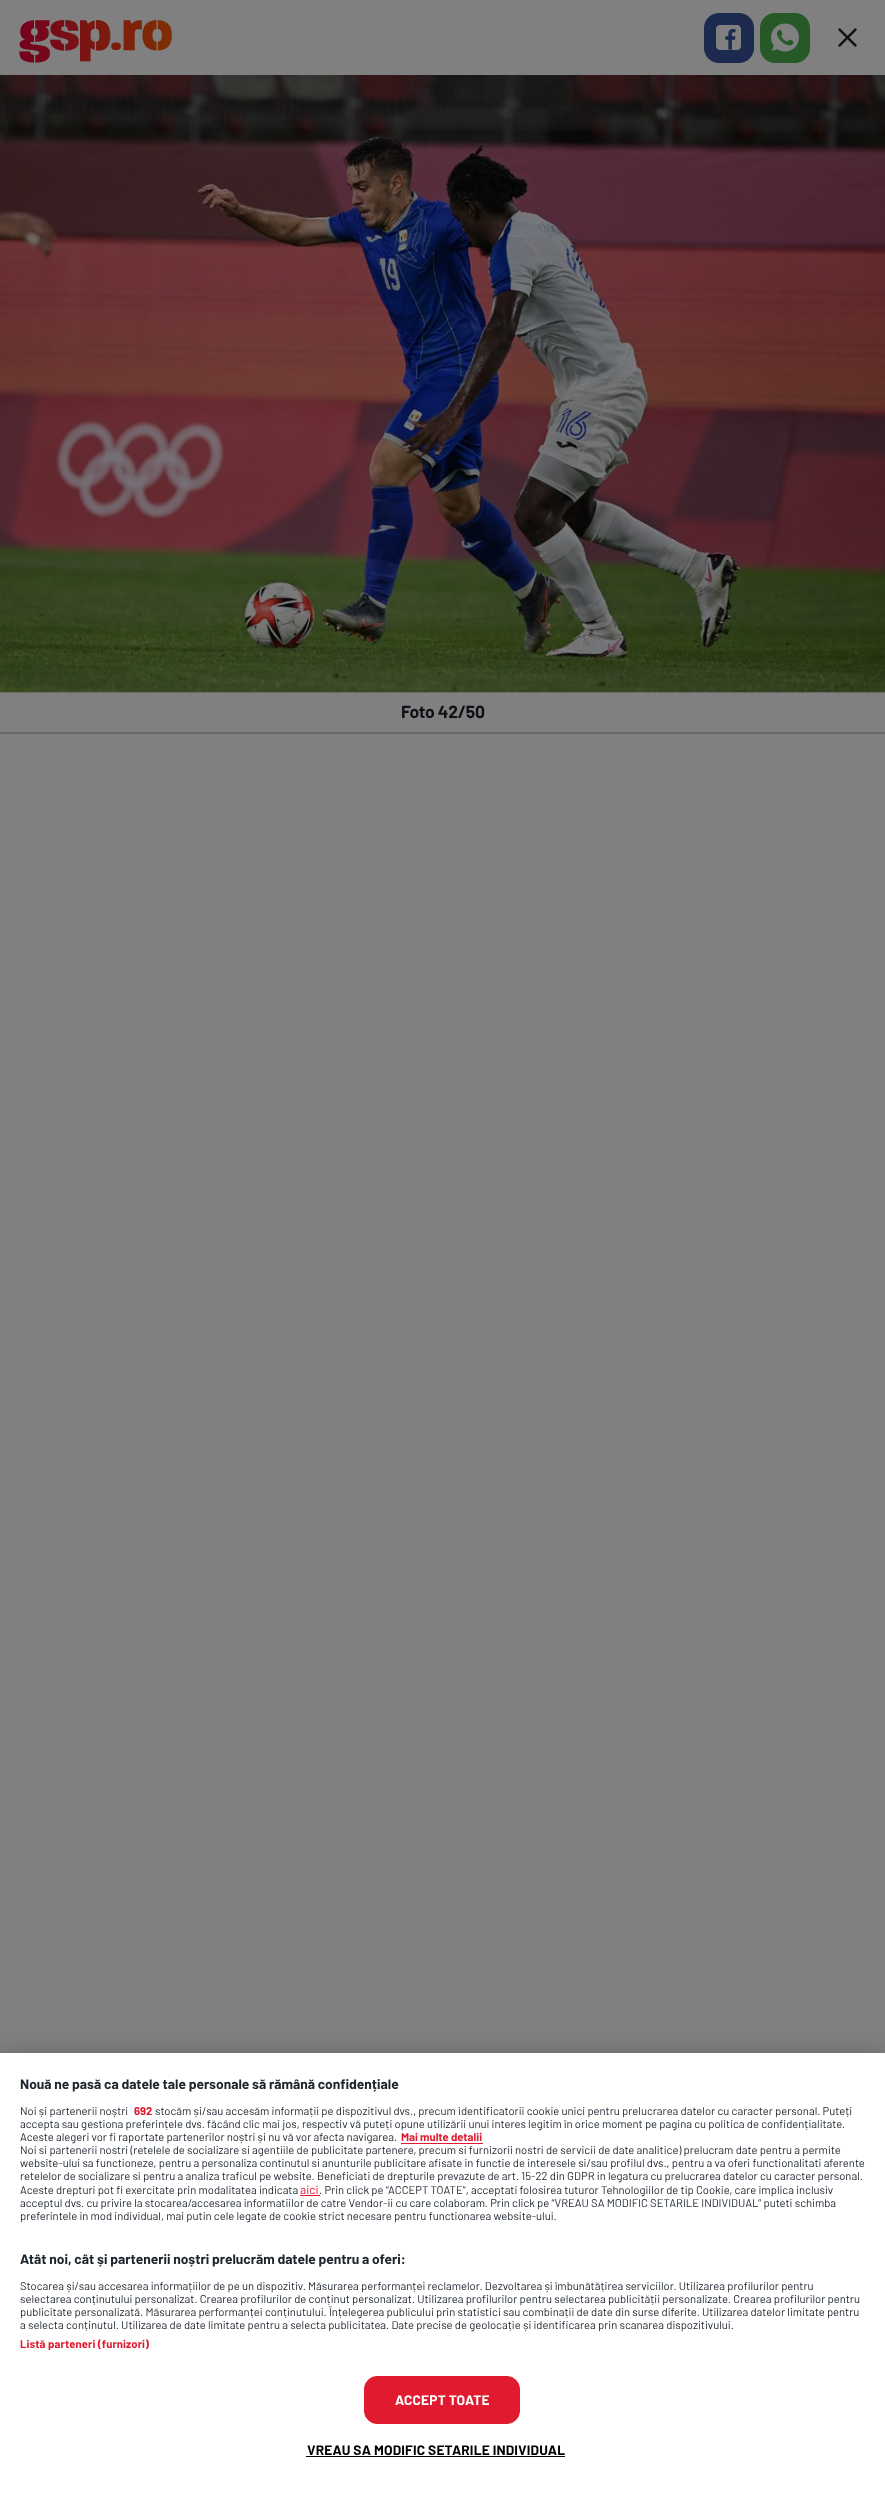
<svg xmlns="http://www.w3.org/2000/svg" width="885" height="2509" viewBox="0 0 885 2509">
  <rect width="100%" height="100%" fill="#808080"/>
  <image x="19" y="20" width="153" height="43" href="img/1.png"/>
  <image x="704" y="13" width="50" height="50" href="img/2.png"/>
  <image x="760" y="13" width="50" height="50" href="img/3.png"/>
  <image x="838" y="28" width="19" height="19" href="img/4.png"/>
  <path d="M0 692h885v1H0z" fill="#7b787a"/>
  <image x="0" y="75" width="885" height="618" href="img/5.png"/>
  <path d="M0 732h885v2H0z" fill="#686868"/>
  <path d="M0 2053h885v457H0z" fill="#00000033" filter="blur(11px)"/>
  <path d="M0 2053h885v456H0z" fill="#fff"/>
  <path d="M401 2143h82v1H401z" fill="#e01b2f"/>
  <path d="M300 2195h20v1H300z" fill="#e01b2f"/>
  <rect x="364.5" y="2376.5" width="155" height="47" rx="12.5" fill="#e01b2f" stroke="#e01b2f"/>
  <path d="M306 2456h259v1H306z" fill="#000"/>
  <text x="401" y="718" font-family="Barlow" font-size="17.5" font-weight="bold" letter-spacing="-0.25" fill="#0e1217">Foto 42/50</text>
  <text x="20" y="2089" font-family="Barlow" font-size="13.75" font-weight="bold" fill="#1c242e">Nouă ne pasă ca datele tale personale să rămână confidențiale</text>
  <text x="20" y="2115" font-family="Barlow" font-size="11.25" fill="#1c242e">Noi și partenerii noștri</text>
  <text x="134" y="2115" font-family="Barlow" font-size="11.25" font-weight="bold" fill="#e01b2f">692</text>
  <g font-family="Barlow" font-size="11.25" fill="#1c242e">
    <text x="155" y="2115">stocăm și/sau accesăm informații pe dispozitivul dvs., precum identificatorii cookie unici pentru prelucrarea datelor cu caracter personal. Puteți</text>
    <text x="20" y="2128">accepta sau gestiona preferințele dvs. făcând clic mai jos, respectiv vă puteți opune utilizării unui interes legitim în orice moment pe pagina cu politica de confidențialitate.</text>
    <text x="20" y="2141">Aceste alegeri vor fi raportate partenerilor noștri și nu vă vor afecta navigarea.</text>
  </g>
  <text x="401" y="2141" font-family="Barlow" font-size="11.25" font-weight="bold" fill="#e01b2f">Mai multe detalii</text>
  <g font-family="Barlow" font-size="11.25" fill="#1c242e">
    <text x="20" y="2154">Noi si partenerii nostri (retelele de socializare si agentiile de publicitate partenere, precum si furnizorii nostri de servicii de date analitice) prelucram date pentru a permite</text>
    <text x="20" y="2167">website-ului sa functioneze, pentru a personaliza continutul si anunturile publicitare afisate in functie de interesele si/sau profilul dvs., pentru a va oferi functionalitati aferente</text>
    <text x="20" y="2180">retelelor de socializare si pentru a analiza traficul pe website. Beneficiati de drepturile prevazute de art. 15-22 din GDPR in legatura cu prelucrarea datelor cu caracter personal.</text>
    <text x="20" y="2194">Aceste drepturi pot fi exercitate prin modalitatea indicata</text>
  </g>
  <text x="300" y="2194" font-family="Barlow" font-size="12" fill="#e01b2f">aici</text>
  <g font-family="Barlow" font-size="11.25" fill="#1c242e">
    <text x="319" y="2194">. Prin click pe “ACCEPT TOATE”, acceptati folosirea tuturor Tehnologiilor de tip Cookie, care implica inclusiv</text>
    <text x="20" y="2207">acceptul dvs. cu privire la stocarea/accesarea informatiilor de catre Vendor-ii cu care colaboram. Prin click pe “VREAU SA MODIFIC SETARILE INDIVIDUAL” puteti schimba</text>
    <text x="20" y="2220">preferintele in mod individual, mai putin cele legate de cookie strict necesare pentru functionarea website-ului.</text>
  </g>
  <text x="20" y="2264" font-family="Barlow" font-size="13.75" font-weight="bold" fill="#1c242e">Atât noi, cât și partenerii noștri prelucrăm datele pentru a oferi:</text>
  <g font-family="Barlow" font-size="11.25" fill="#1c242e">
    <text x="20" y="2290">Stocarea și/sau accesarea informațiilor de pe un dispozitiv. Măsurarea performanței reclamelor. Dezvoltarea și îmbunătățirea serviciilor. Utilizarea profilurilor pentru</text>
    <text x="20" y="2303">selectarea conținutului personalizat. Crearea profilurilor de conținut personalizat. Utilizarea profilurilor pentru selectarea publicității personalizate. Crearea profilurilor pentru</text>
    <text x="20" y="2316">publicitate personalizată. Măsurarea performanței conținutului. Înțelegerea publicului prin statistici sau combinații de date din surse diferite. Utilizarea datelor limitate pentru</text>
    <text x="20" y="2329">a selecta conținutul. Utilizarea de date limitate pentru a selecta publicitatea. Date precise de geolocație și identificarea prin scanarea dispozitivului.</text>
  </g>
  <text x="20" y="2348" font-family="Barlow" font-size="11.25" font-weight="bold" letter-spacing="0.1" fill="#e01b2f">Listă parteneri (furnizori)</text>
  <text x="395" y="2405" font-family="Barlow" font-size="13.75" font-weight="bold" letter-spacing="0.15" fill="#fff">ACCEPT TOATE</text>
  <text x="307" y="2455" font-family="Barlow" font-size="13.75" font-weight="bold" letter-spacing="0.15" fill="#000">VREAU SA MODIFIC SETARILE INDIVIDUAL</text>
</svg>
